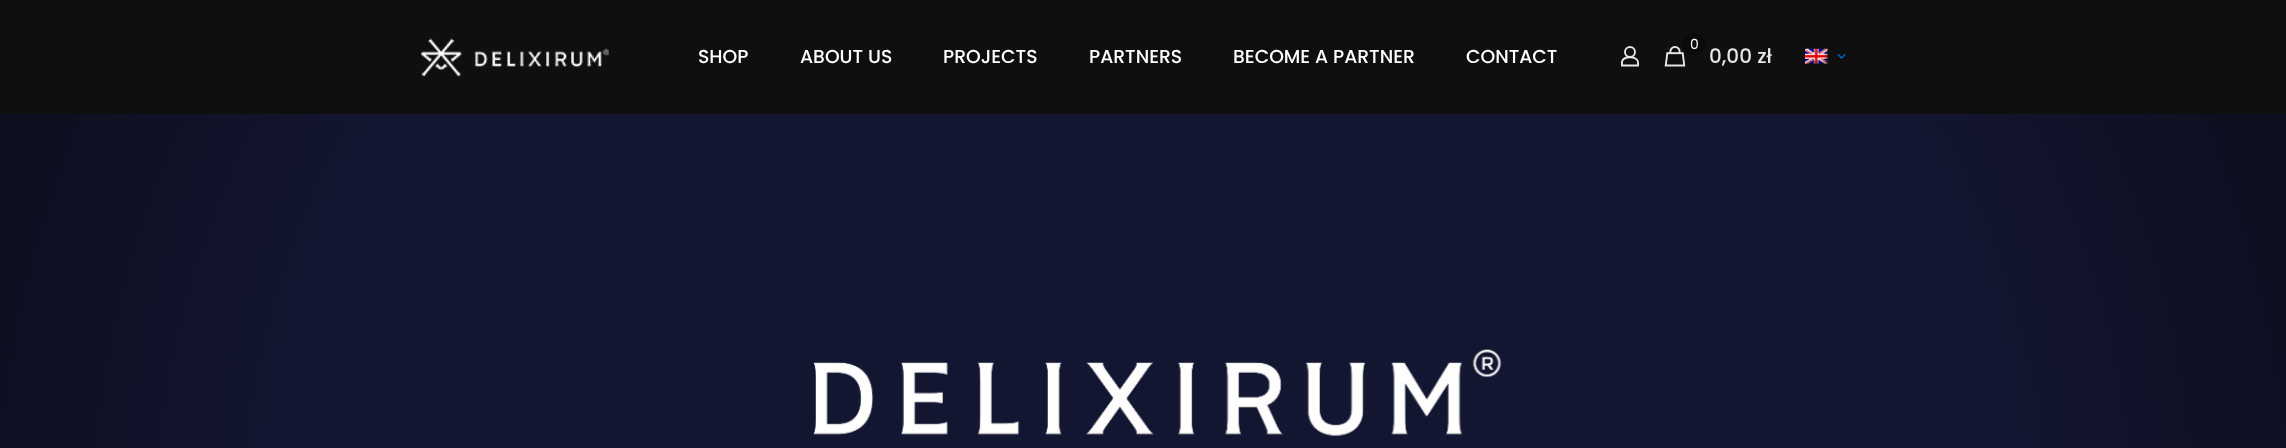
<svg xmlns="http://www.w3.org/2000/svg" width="2286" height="448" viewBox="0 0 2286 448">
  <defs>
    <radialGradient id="g1" gradientUnits="userSpaceOnUse" cx="1143" cy="554" r="1860"><stop offset="0.47" stop-color="#131630"/><stop offset="1" stop-color="#000"/></radialGradient>
  </defs>
  <rect width="100%" height="100%" fill="#0f0f0f"/>
  <image x="421" y="38" width="188" height="39" href="img/1.png"/>
  <circle cx="1630" cy="52" r="5" fill="none" stroke="#e8e8e8" stroke-width="1.9"/>
  <path d="M1638 62.5V65.5H1622V61.5C1624 55.5 1638 56 1638 62.5Z" fill="none" stroke="#e8e8e8" stroke-width="1.9"/>
  <image x="1664" y="46" width="22" height="21" href="img/2.png"/>
  <circle cx="1694" cy="44" r="11" fill="#0a0a0a"/>
  <image x="1805" y="48" width="23" height="16" href="img/3.png"/>
  <image x="1837" y="54" width="9" height="5" href="img/4.png"/>
  <path d="M0 114h2286v334H0z" fill="url(#g1)"/>
  <image x="813" y="349" width="689" height="87" href="img/5.png"/>
  <g font-family="Poppins" font-size="18.75" font-weight="500" fill="#fff">
    <text x="698" y="63">SHOP</text>
    <text x="800" y="63">ABOUT US</text>
    <text x="943" y="63">PROJECTS</text>
    <text x="1089" y="63">PARTNERS</text>
    <text x="1233" y="63">BECOME A PARTNER</text>
    <text x="1466" y="63">CONTACT</text>
  </g>
  <text x="1690" y="49" font-family="Poppins" font-size="14" fill="#fff">0</text>
  <text x="1709" y="63" font-family="Poppins" font-size="20" font-weight="500" fill="#e8e8e8">0,00 zł</text>
</svg>
